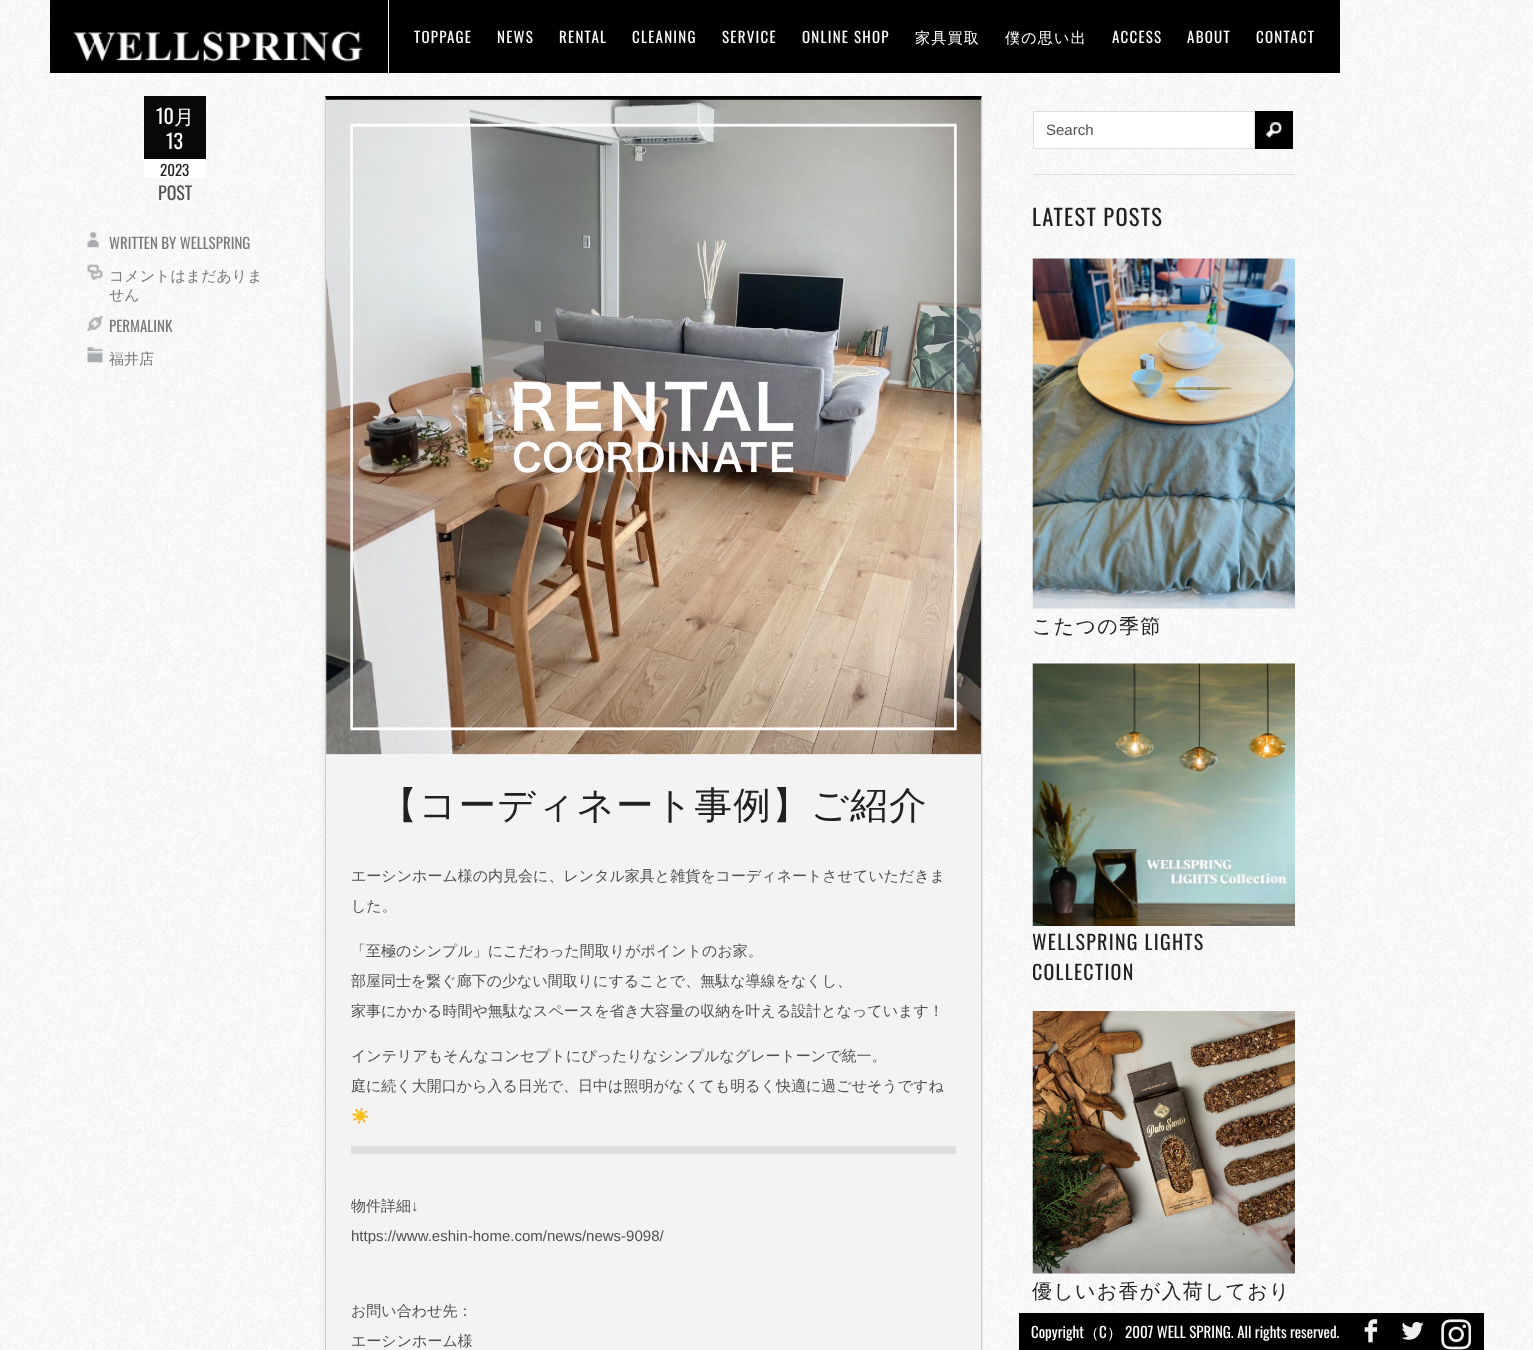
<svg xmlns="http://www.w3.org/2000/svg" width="1533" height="1350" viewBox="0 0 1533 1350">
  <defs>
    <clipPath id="clip1"><path d="M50 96h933v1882H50z"/></clipPath>
    <clipPath id="clip2"><path d="M1033 200h262v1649H1033z"/></clipPath>
  </defs>
  <rect width="100%" height="100%" fill="#fff"/>
  <image x="0" y="0" width="1533" height="1350" href="img/1.png"/>
  <path d="M50 0h338v73H50z" fill="#000"/>
  <image x="73" y="31" width="290" height="31" href="img/2.png"/>
  <path d="M389 0h951v73H389z" fill="#000"/>
  <path d="M144 96h62v63H144z" fill="#080808"/>
  <path d="M144 159h62v19H144z" fill="#fff"/>
  <image x="87" y="232" width="12" height="16" href="img/3.png"/>
  <image x="87" y="264" width="16" height="16" href="img/4.png"/>
  <image x="87" y="316" width="16" height="15" href="img/5.png"/>
  <image x="87" y="347" width="16" height="16" href="img/6.png"/>
  <g clip-path="url(#clip1)">
    <path d="M325 96h658v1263H325z" fill="#0000001a" filter="blur(3px)"/>
  </g>
  <path d="M326 100h655v1250H326z" fill="#f3f3f3"/>
  <path d="M325 96H982L981 100H326Z" fill="#000"/>
  <path d="M982 96V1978L981 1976V100Z" fill="#cecece"/>
  <path d="M325 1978V96L326 100V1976Z" fill="#cecece"/>
  <image x="326" y="99" width="656" height="656" href="img/7.png"/>
  <path d="M351 1146h605v8H351z" fill="#dedede"/>
  <path d="M1033 174h262v1H1033z" fill="#dedede"/>
  <path d="M1033.5 111.5h221v37H1033.5z" fill="#fff" stroke="#dedede"/>
  <path d="M1255 111h38v38H1255z" fill="#000"/>
  <image x="1266" y="122" width="16" height="16" href="img/8.png"/>
  <image x="1032" y="258" width="263" height="351" href="img/9.png"/>
  <image x="1032" y="663" width="263" height="263" href="img/10.png"/>
  <image x="1032" y="1011" width="263" height="263" href="img/11.png"/>
  <path d="M1019 1313h465v37H1019z" fill="#000"/>
  <image x="1441" y="1319" width="30" height="31" href="img/12.png"/>
  <g font-family="Oswald" font-size="15" letter-spacing="1.25" fill="#fff">
    <text x="414" y="43">TOPPAGE</text>
    <text x="497" y="43">NEWS</text>
    <text x="559" y="43">RENTAL</text>
    <text x="632" y="43">CLEANING</text>
    <text x="722" y="43">SERVICE</text>
    <text x="802" y="43">ONLINE SHOP</text>
  </g>
  <g font-family="WenQuanYi Zen Hei" font-size="15" font-weight="500" letter-spacing="1.25" fill="#fff">
    <text x="915" y="43">家具買取</text>
    <text x="1005" y="43">僕の思い出</text>
  </g>
  <g font-family="Oswald" font-size="15" letter-spacing="1.25" fill="#fff">
    <text x="1112" y="43">ACCESS</text>
    <text x="1187" y="43">ABOUT</text>
    <text x="1256" y="43">CONTACT</text>
  </g>
  <text x="156" y="124" font-family="Oswald" font-size="20" fill="#fff">10</text>
  <text x="174" y="124" font-family="WenQuanYi Zen Hei" font-size="20" font-weight="500" fill="#fff">月</text>
  <text x="166" y="149" font-family="Oswald" font-size="20" fill="#fff">13</text>
  <text x="160" y="176" font-family="Oswald" font-size="15" fill="#212122">2023</text>
  <text x="158" y="200" font-family="Oswald" font-size="18" fill="#515151">POST</text>
  <text x="109" y="249" font-family="Oswald" font-size="15" fill="#797979">WRITTEN BY WELLSPRING</text>
  <g font-family="WenQuanYi Zen Hei" font-size="15" font-weight="500" fill="#797979">
    <text x="109" y="281">コメントはまだありま</text>
    <text x="109" y="300">せん</text>
  </g>
  <text x="109" y="332" font-family="Oswald" font-size="15" fill="#797979">PERMALINK</text>
  <text x="109" y="364" font-family="WenQuanYi Zen Hei" font-size="15" font-weight="500" fill="#797979">福井店</text>
  <text x="380" y="818" font-family="WenQuanYi Zen Hei" font-size="37.5" font-weight="500" letter-spacing="1.25" fill="#212122">【コーディネート事例】ご紹介</text>
  <g font-family="WenQuanYi Zen Hei" font-size="15" font-weight="500" fill="#515151">
    <text x="351" y="881">エーシンホーム様の内見会に、レンタル家具と雑貨をコーディネートさせていただきま</text>
    <text x="351" y="911">した。</text>
    <text x="351" y="956">「至極のシンプル」にこだわった間取りがポイントのお家。</text>
    <text x="351" y="986">部屋同士を繋ぐ廊下の少ない間取りにすることで、無駄な導線をなくし、</text>
    <text x="351" y="1016">家事にかかる時間や無駄なスペースを省き大容量の収納を叶える設計となっています！</text>
    <text x="351" y="1061">インテリアもそんなコンセプトにぴったりなシンプルなグレートーンで統一。</text>
    <text x="351" y="1091">庭に続く大開口から入る日光で、日中は照明がなくても明るく快適に過ごせそうですね</text>
  </g>
  <text x="351" y="1121" font-family="Noto Color Emoji" font-size="15" fill="#515151">☀️</text>
  <text x="351" y="1211" font-family="WenQuanYi Zen Hei" font-size="15" font-weight="500" fill="#515151">物件詳細</text>
  <g font-family="Liberation Sans" font-size="15" fill="#515151">
    <text x="411" y="1211">↓</text>
    <text x="351" y="1241">https://www.eshin-home.com/news/news-9098/</text>
  </g>
  <g font-family="WenQuanYi Zen Hei" font-size="15" font-weight="500" fill="#515151">
    <text x="351" y="1316">お問い合わせ先：</text>
    <text x="351" y="1346">エーシンホーム様</text>
  </g>
  <text x="1046" y="135" font-family="Liberation Sans" font-size="15" fill="#515151">Search</text>
  <text x="1032" y="226" font-family="Oswald" font-size="22.5" letter-spacing="1.25" fill="#212122">LATEST POSTS</text>
  <text x="1032" y="633" font-family="WenQuanYi Zen Hei" font-size="20" font-weight="500" letter-spacing="1.25" fill="#212122">こたつの季節</text>
  <g clip-path="url(#clip2)">
    <g font-family="Oswald" font-size="20" letter-spacing="1.25" fill="#212122">
      <text x="1032" y="950">WELLSPRING LIGHTS</text>
      <text x="1032" y="980">COLLECTION</text>
    </g>
  </g>
  <text x="1032" y="1298" font-family="WenQuanYi Zen Hei" font-size="20" font-weight="500" letter-spacing="1.25" fill="#212122">優しいお香が入荷しており</text>
  <text x="1031" y="1338" font-family="Oswald" font-size="15" fill="#fff">Copyright</text>
  <text x="1084" y="1338" font-family="WenQuanYi Zen Hei" font-size="15" font-weight="500" fill="#fff">（</text>
  <text x="1099" y="1338" font-family="Oswald" font-size="15" fill="#fff">C</text>
  <text x="1107" y="1338" font-family="WenQuanYi Zen Hei" font-size="15" font-weight="500" fill="#fff">）</text>
  <text x="1125" y="1338" font-family="Oswald" font-size="15" fill="#fff">2007 WELL SPRING. All rights reserved.</text>
  <g font-family="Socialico" font-size="37.5" fill="#efefef">
    <text x="1363" y="1344">F</text>
    <text x="1397" y="1344">L</text>
  </g>
</svg>
